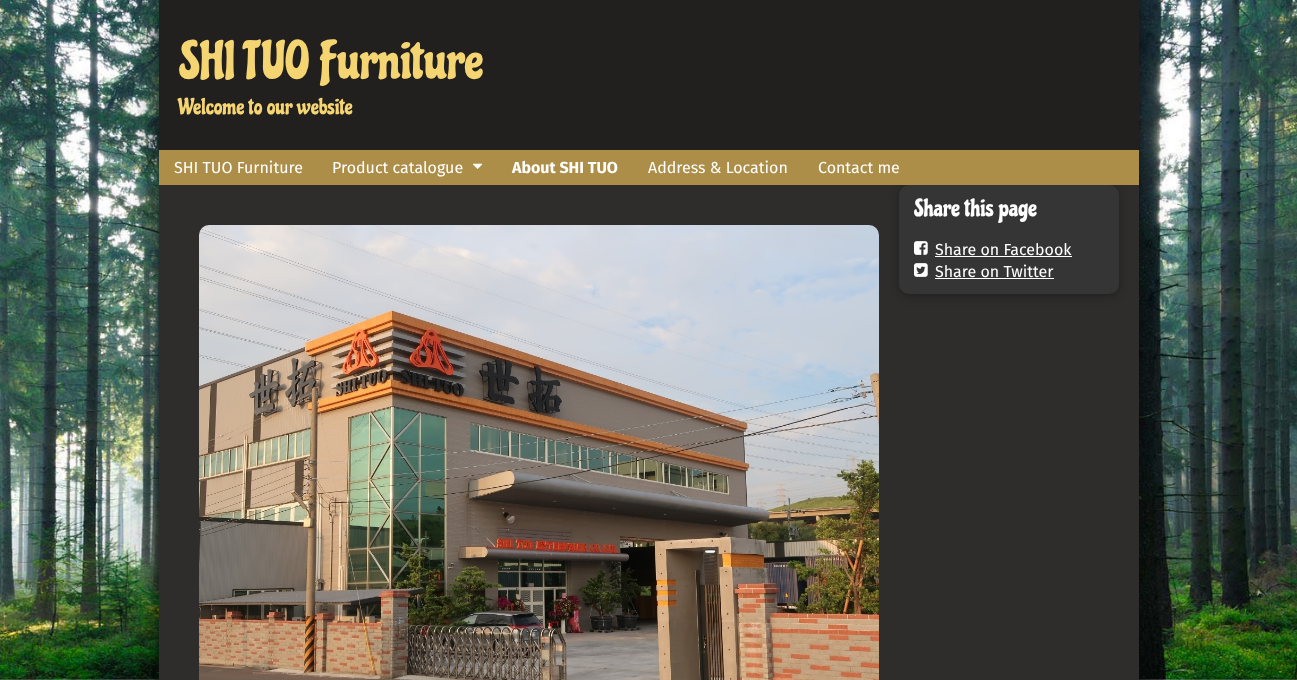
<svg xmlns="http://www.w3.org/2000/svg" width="1297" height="680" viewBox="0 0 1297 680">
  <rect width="100%" height="100%" fill="#fff"/>
  <image x="0" y="0" width="1297" height="680" href="img/1.png"/>
  <rect x="159" width="980" height="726" rx="10" fill="#000000cc" filter="blur(12px)"/>
  <path d="M159 185h980v495H159z" fill="#2e2d2c"/>
  <path d="M159 0h980v150H159z" fill="#21201e"/>
  <rect x="899" y="187" width="220" height="109" rx="10" fill="#0000004a" filter="blur(5px)"/>
  <path d="M159 150h980v35H159z" fill="#ad8e48"/>
  <image x="473" y="163" width="10" height="6" href="img/2.png"/>
  <image x="199" y="225" width="680" height="455" href="img/3.png"/>
  <rect x="899" y="185" width="220" height="109" rx="10" fill="#353535"/>
  <image x="914" y="241" width="14" height="14" href="img/4.png"/>
  <path d="M935 256h137v1H935z" fill="#fff"/>
  <image x="914" y="263" width="14" height="14" href="img/5.png"/>
  <path d="M935 278h119v1H935z" fill="#fff"/>
  <text x="179" y="78" font-family="Chicle" font-size="52" fill="#f5d472">SHI TUO Furniture</text>
  <text x="179" y="114" font-family="Chicle" font-size="22" fill="#f5d472">Welcome to our website</text>
  <g font-family="Fira Sans" font-size="16" fill="#fff">
    <text x="174" y="173">SHI TUO Furniture</text>
    <text x="332" y="173">Product catalogue</text>
  </g>
  <text x="512" y="173" font-family="Fira Sans" font-size="16" font-weight="bold" fill="#fff">About SHI TUO</text>
  <g font-family="Fira Sans" font-size="16" fill="#fff">
    <text x="648" y="173">Address &amp; Location</text>
    <text x="818" y="173">Contact me</text>
  </g>
  <text x="914" y="216" font-family="Chicle" font-size="24" fill="#fff">Share this page</text>
  <g font-family="Fira Sans" font-size="16" fill="#fff">
    <text x="935" y="255">Share on Facebook</text>
    <text x="935" y="277">Share on Twitter</text>
  </g>
</svg>
